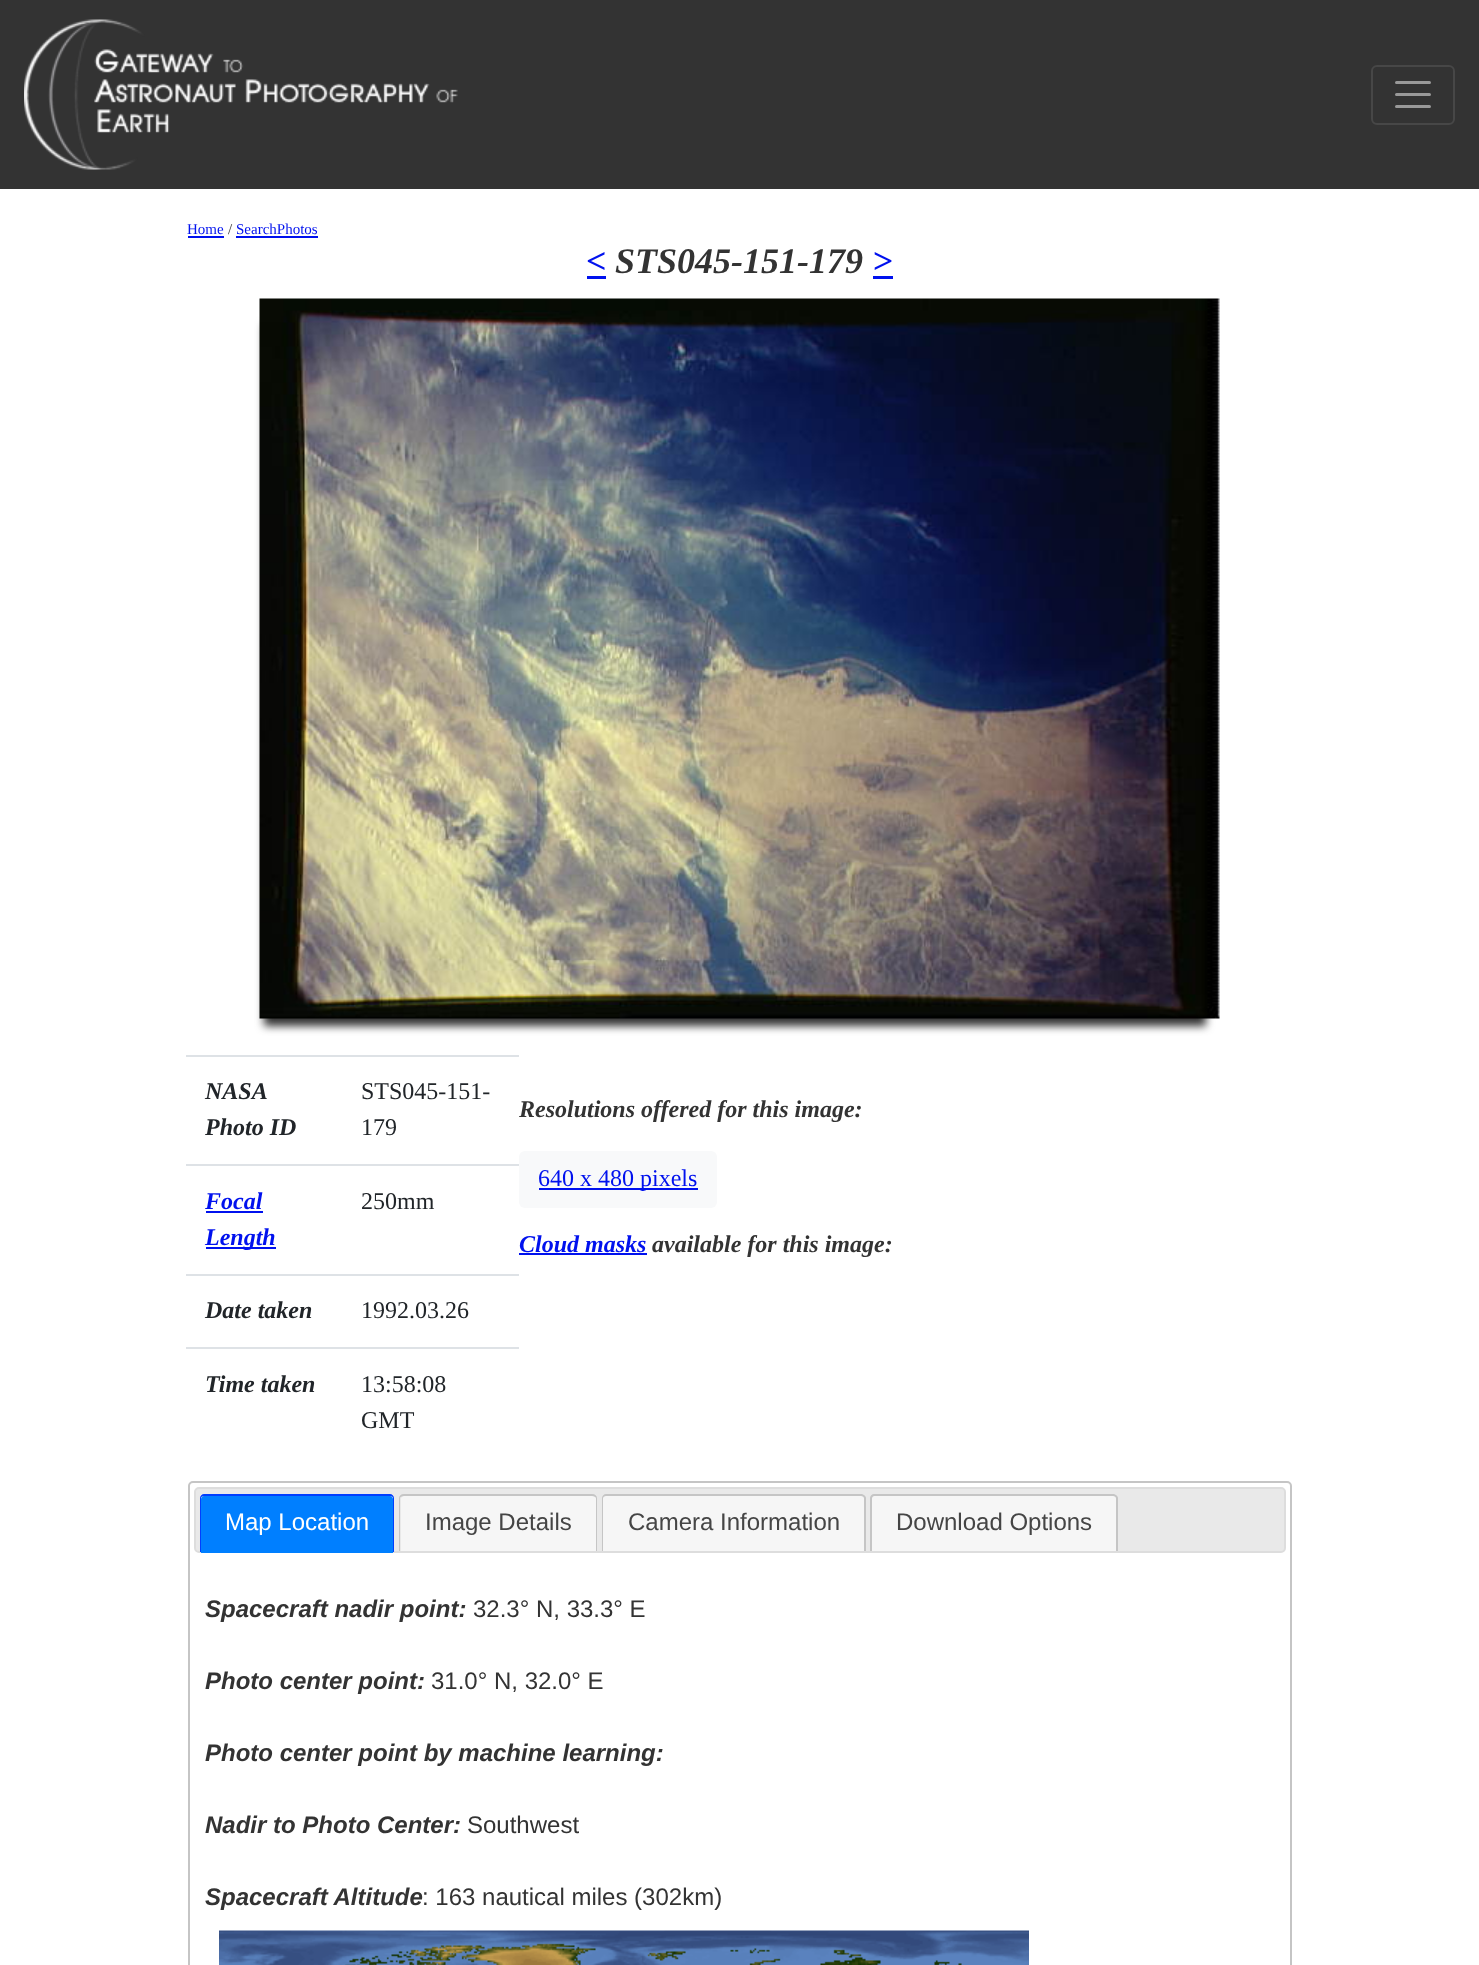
<svg xmlns="http://www.w3.org/2000/svg" width="1479" height="1965" viewBox="0 0 1479 1965">
  <rect width="100%" height="100%" fill="#fff"/>
  <path d="M0 0h1479v189H0z" fill="#333"/>
  <image x="24" y="19" width="434" height="151" href="img/1.png"/>
  <rect x="1372" y="66" width="82" height="58" rx="5" fill="none" stroke="#474747" stroke-width="2"/>
  <path d="M1396.5 82.5H1429.5M1396.5 94.5H1429.5M1396.5 106.5H1429.5" fill="none" stroke="#999" stroke-width="3" stroke-linecap="round"/>
  <path d="M188 236h36v2H188z" fill="#01e"/>
  <path d="M236 236h82v2H236z" fill="#01e"/>
  <path d="M587 276h19v3H587z" fill="#01e"/>
  <path d="M873 276h20v3H873z" fill="#01e"/>
  <path d="M264 324h942v702H264z" fill="#333" filter="blur(4.5px)"/>
  <image x="259" y="298" width="961" height="721" href="img/2.png"/>
  <path d="M186 1055h333v2H186z" fill="#dee2e6"/>
  <path d="M206 1211h57v2H206z" fill="#01e"/>
  <path d="M206 1247h70v2H206z" fill="#01e"/>
  <path d="M186 1164h333v2H186z" fill="#dee2e6"/>
  <path d="M186 1274h333v2H186z" fill="#dee2e6"/>
  <path d="M186 1347h333v2H186z" fill="#dee2e6"/>
  <rect x="519" y="1151" width="198" height="57" rx="6" fill="#f8f9fa"/>
  <path d="M539 1188h159v2H539z" fill="#01e"/>
  <path d="M519 1253h128v2H519z" fill="#01e"/>
  <rect x="189" y="1482" width="1102" height="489" rx="4" fill="none" stroke="#c5c5c5" stroke-width="2"/>
  <rect x="195" y="1488" width="1090" height="64" rx="4" fill="#e9e9e9" stroke="#ddd" stroke-width="2"/>
  <path d="M204 1496H390C391.5 1496 393 1497.5 393 1499V1553H201V1499C201 1497.5 202.5 1496 204 1496Z" fill="#007fff"/>
  <path d="M204 1494H390C392 1494 394 1496 394 1498V1552H200V1498C200 1496 202 1494 204 1494ZM204 1496H390C392 1496 393 1497 393 1498V1552H201V1498C201 1497 202 1496 204 1496Z" fill="#003eff" fill-rule="evenodd"/>
  <path d="M404 1496H593C594.5 1496 596 1497.5 596 1499V1551H401V1499C401 1497.5 402.5 1496 404 1496Z" fill="#f6f6f6"/>
  <path d="M404 1494H592C595 1494 597 1496 597 1498V1551H399V1498C399 1496 401 1494 404 1494ZM404 1496H592C594 1496 596 1497 596 1498V1551H400V1498C400 1497 402 1496 404 1496Z" fill="#c5c5c5" fill-rule="evenodd"/>
  <path d="M606 1496H861C862.5 1496 864 1497.5 864 1499V1551H603V1499C603 1497.5 604.5 1496 606 1496Z" fill="#f6f6f6"/>
  <path d="M606 1494H861C863 1494 866 1496 866 1498V1551H602V1498C602 1496 604 1494 606 1494ZM606 1496H861C863 1496 864 1497 864 1498V1551H603V1498C603 1497 604 1496 606 1496Z" fill="#c5c5c5" fill-rule="evenodd"/>
  <path d="M875 1496H1113C1114.5 1496 1116 1497.5 1116 1499V1551H872V1499C872 1497.5 873.5 1496 875 1496Z" fill="#f6f6f6"/>
  <path d="M874 1494H1113C1115 1494 1118 1496 1118 1498V1551H870V1498C870 1496 872 1494 874 1494ZM874 1496H1113C1115 1496 1116 1497 1116 1498V1551H872V1498C872 1497 873 1496 874 1496Z" fill="#c5c5c5" fill-rule="evenodd"/>
  <image x="219" y="1930" width="810" height="35" href="img/3.png"/>
  <text x="187" y="234" font-family="Liberation Serif" font-size="15" fill="#01e">Home</text>
  <text x="228" y="234" font-family="Liberation Serif" font-size="15" fill="#333">/</text>
  <text x="236" y="234" font-family="Liberation Serif" font-size="15" fill="#01e">SearchPhotos</text>
  <text x="586" y="273" font-family="Liberation Serif" font-size="36" font-weight="bold" font-style="italic" fill="#01e">&lt;</text>
  <text x="615" y="273" font-family="Liberation Serif" font-size="36" font-weight="bold" font-style="italic" fill="#333">STS045-151-179</text>
  <text x="872" y="273" font-family="Liberation Serif" font-size="36" font-weight="bold" font-style="italic" fill="#01e">&gt;</text>
  <g font-family="Liberation Serif" font-size="24" font-weight="bold" font-style="italic" fill="#212529">
    <text x="205" y="1099">NASA</text>
    <text x="205" y="1135">Photo ID</text>
  </g>
  <g font-family="Liberation Serif" font-size="24" fill="#212529">
    <text x="361" y="1099">STS045-151-</text>
    <text x="361" y="1135">179</text>
  </g>
  <g font-family="Liberation Serif" font-size="24" font-weight="bold" font-style="italic" fill="#01e">
    <text x="205" y="1209">Focal</text>
    <text x="205" y="1245">Length</text>
  </g>
  <text x="361" y="1209" font-family="Liberation Serif" font-size="24" fill="#212529">250mm</text>
  <text x="205" y="1318" font-family="Liberation Serif" font-size="24" font-weight="bold" font-style="italic" fill="#212529">Date taken</text>
  <text x="361" y="1318" font-family="Liberation Serif" font-size="24" fill="#212529">1992.03.26</text>
  <text x="205" y="1392" font-family="Liberation Serif" font-size="24" font-weight="bold" font-style="italic" fill="#212529">Time taken</text>
  <g font-family="Liberation Serif" font-size="24" fill="#212529">
    <text x="361" y="1392">13:58:08</text>
    <text x="361" y="1428">GMT</text>
  </g>
  <text x="519" y="1117" font-family="Liberation Serif" font-size="24" font-weight="bold" font-style="italic" fill="#333">Resolutions offered for this image:</text>
  <text x="538" y="1186" font-family="Liberation Serif" font-size="24" fill="#01e">640 x 480 pixels</text>
  <text x="519" y="1252" font-family="Liberation Serif" font-size="24" font-weight="bold" font-style="italic" fill="#01e">Cloud masks</text>
  <text x="652" y="1252" font-family="Liberation Serif" font-size="24" font-weight="bold" font-style="italic" fill="#333">available for this image:</text>
  <text x="225" y="1530" font-family="Liberation Sans" font-size="24" fill="#fff">Map Location</text>
  <g font-family="Liberation Sans" font-size="24" fill="#454545">
    <text x="425" y="1530">Image Details</text>
    <text x="628" y="1530">Camera Information</text>
    <text x="896" y="1530">Download Options</text>
  </g>
  <text x="205" y="1617" font-family="Liberation Sans" font-size="24" font-weight="bold" font-style="italic" fill="#333">Spacecraft nadir point:</text>
  <text x="473" y="1617" font-family="Liberation Sans" font-size="24" fill="#333">32.3° N, 33.3° E</text>
  <text x="205" y="1689" font-family="Liberation Sans" font-size="24" font-weight="bold" font-style="italic" fill="#333">Photo center point:</text>
  <text x="431" y="1689" font-family="Liberation Sans" font-size="24" fill="#333">31.0° N, 32.0° E</text>
  <g font-family="Liberation Sans" font-size="24" font-weight="bold" font-style="italic" fill="#333">
    <text x="205" y="1761">Photo center point by machine learning:</text>
    <text x="205" y="1833">Nadir to Photo Center:</text>
  </g>
  <text x="467" y="1833" font-family="Liberation Sans" font-size="24" fill="#333">Southwest</text>
  <text x="205" y="1905" font-family="Liberation Sans" font-size="24" font-weight="bold" font-style="italic" fill="#333">Spacecraft Altitude</text>
  <text x="422" y="1905" font-family="Liberation Sans" font-size="24" fill="#333">: 163 nautical miles (302km)</text>
</svg>
